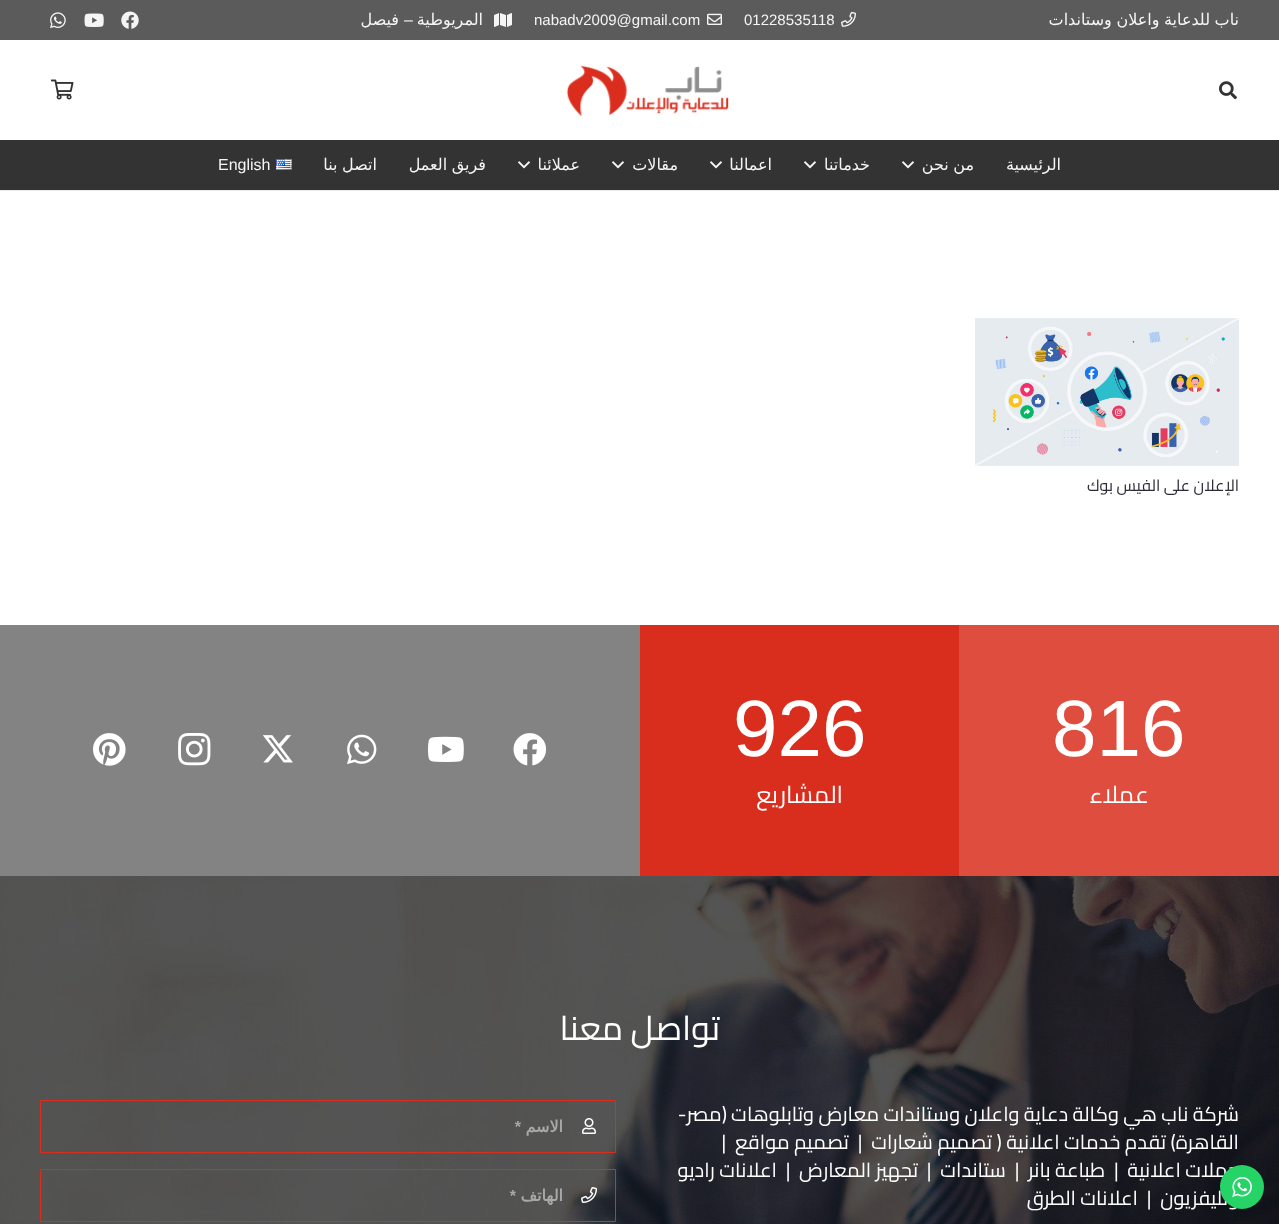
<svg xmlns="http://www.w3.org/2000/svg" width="1279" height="1224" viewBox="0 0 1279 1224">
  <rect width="100%" height="100%" fill="#fff"/>
  <path d="M0 0h1279v40H0z" fill="#5b5b5b"/>
  <image x="841" y="11" width="15" height="16" href="img/1.png"/>
  <image x="707" y="13" width="15" height="12" href="img/2.png"/>
  <image x="494" y="13" width="18" height="14" href="img/3.png"/>
  <image x="121" y="11" width="18" height="18" href="img/4.png"/>
  <image x="84" y="13" width="20" height="14" href="img/5.png"/>
  <image x="50" y="12" width="16" height="17" href="img/6.png"/>
  <image x="1219" y="81" width="18" height="19" href="img/7.png"/>
  <image x="566" y="65" width="163" height="51" href="img/8.png"/>
  <image x="51" y="79" width="23" height="21" href="img/9.png"/>
  <path d="M0 190h1279v1H0z" fill="#ebebeb"/>
  <path d="M0 140h1279v50H0z" fill="#333"/>
  <image x="902" y="161" width="12" height="8" href="img/10.png"/>
  <image x="804" y="161" width="12" height="8" href="img/10.png"/>
  <image x="710" y="161" width="12" height="8" href="img/10.png"/>
  <image x="612" y="161" width="12" height="8" href="img/10.png"/>
  <image x="518" y="161" width="12" height="8" href="img/10.png"/>
  <image x="276" y="159" width="16" height="11" href="img/11.png"/>
  <image x="975" y="318" width="264" height="148" href="img/12.png"/>
  <path d="M640 625h319v251H640z" fill="#d92d1d"/>
  <path d="M959 625h320v251H959z" fill="#df4d3f"/>
  <path d="M0 625h640v251H0z" fill="#848383"/>
  <image x="513" y="733" width="34" height="33" href="img/14.png"/>
  <image x="428" y="736" width="36" height="26" href="img/15.png"/>
  <image x="347" y="734" width="30" height="30" href="img/16.png"/>
  <image x="262" y="735" width="31" height="28" href="img/17.png"/>
  <image x="178" y="733" width="33" height="33" href="img/18.png"/>
  <image x="93" y="733" width="33" height="33" href="img/19.png"/>
  <image x="0" y="876" width="1279" height="348" href="img/20.png"/>
  <path d="M40.5 1100.5h575v52H40.5z" fill="none" stroke="#d92d1d"/>
  <image x="582" y="1118" width="14" height="16" href="img/21.png"/>
  <path d="M40.5 1169.5h575v52H40.5z" fill="none" stroke="#d92d1d"/>
  <image x="581" y="1187" width="16" height="16" href="img/22.png"/>
  <text x="1239" y="25" word-spacing="-0.5" font-family="DejaVu Sans" font-size="16" direction="rtl" fill="#f5f5f5">ناب للدعاية واعلان وستاندات</text>
  <g font-family="Liberation Sans" font-size="15" fill="#f5f5f5">
    <text x="744" y="25">01228535118</text>
    <text x="534" y="25">nabadv2009@gmail.com</text>
  </g>
  <text x="483" y="25" font-family="DejaVu Sans" font-size="16" direction="rtl" fill="#f5f5f5">المريوطية</text>
  <text x="413" y="25" font-family="Liberation Sans" font-size="16" direction="rtl" fill="#f5f5f5">–</text>
  <g font-family="DejaVu Sans" font-size="16" direction="rtl" fill="#f5f5f5">
    <text x="399" y="25">فيصل</text>
    <text x="1061" y="170">الرئيسية</text>
    <text x="974" y="170" word-spacing="-0.5">من نحن</text>
    <text x="870" y="170">خدماتنا</text>
    <text x="772" y="170">اعمالنا</text>
    <text x="678" y="170">مقالات</text>
    <text x="580" y="170">عملائنا</text>
    <text x="486" y="170" word-spacing="-0.5">فريق العمل</text>
    <text x="377" y="170" word-spacing="-0.5">اتصل بنا</text>
  </g>
  <text x="218" y="170" font-family="Liberation Sans" font-size="16" fill="#f5f5f5">English</text>
  <text x="1239" y="491" font-family="Cairo" font-size="16" direction="rtl" fill="#2b2c36">الإعلان على الفيس بوك</text>
  <text x="1052" y="756" font-family="Liberation Sans" font-size="80" fill="#fff">816</text>
  <text x="1149" y="803" font-family="Cairo" font-size="24" direction="rtl" fill="#fff">عملاء</text>
  <text x="733" y="756" font-family="Liberation Sans" font-size="80" fill="#fff">926</text>
  <text x="843" y="803" font-family="Cairo" font-size="24" direction="rtl" fill="#fff">المشاريع</text>
  <text x="720" y="1040" font-family="Cairo" font-size="34" direction="rtl" fill="#fff">تواصل معنا</text>
  <g font-family="Cairo" font-size="20" direction="rtl" fill="#fff">
    <text x="1239" y="1121">شركة ناب هي وكالة دعاية واعلان و</text>
    <text x="949" y="1121">ستاندات معارض</text>
    <text x="814" y="1121">و</text>
    <text x="803" y="1121">تابلوهات</text>
    <text x="727" y="1121">(مصر-</text>
    <text x="1239" y="1149" xml:space="preserve">القاهرة) تقدم خدمات اعلانية ( تصميم شعارات  |  تصميم مواقع  |</text>
    <text x="1239" y="1177" xml:space="preserve">حملات اعلانية  |  طباعة بانر  |  ستاندات  |  تجهيز المعارض  |  اعلانات راديو</text>
    <text x="1239" y="1205" xml:space="preserve">وتليفزيون  |  اعلانات الطرق</text>
  </g>
  <circle cx="1242" cy="1187" r="22" fill="#25d366"/>
  <image x="1232" y="1177" width="20" height="20" href="img/13.png"/>
  <text x="563" y="1132" font-family="DejaVu Sans" font-size="16" font-weight="bold" direction="rtl" fill="#a9a9a8">الاسم</text>
  <text x="521" y="1132" font-family="Liberation Sans" font-size="16" font-weight="bold" direction="rtl" fill="#a9a9a8">*</text>
  <text x="563" y="1201" font-family="DejaVu Sans" font-size="16" font-weight="bold" direction="rtl" fill="#a9a9a8">الهاتف</text>
  <text x="516" y="1201" font-family="Liberation Sans" font-size="16" font-weight="bold" direction="rtl" fill="#a9a9a8">*</text>
</svg>
